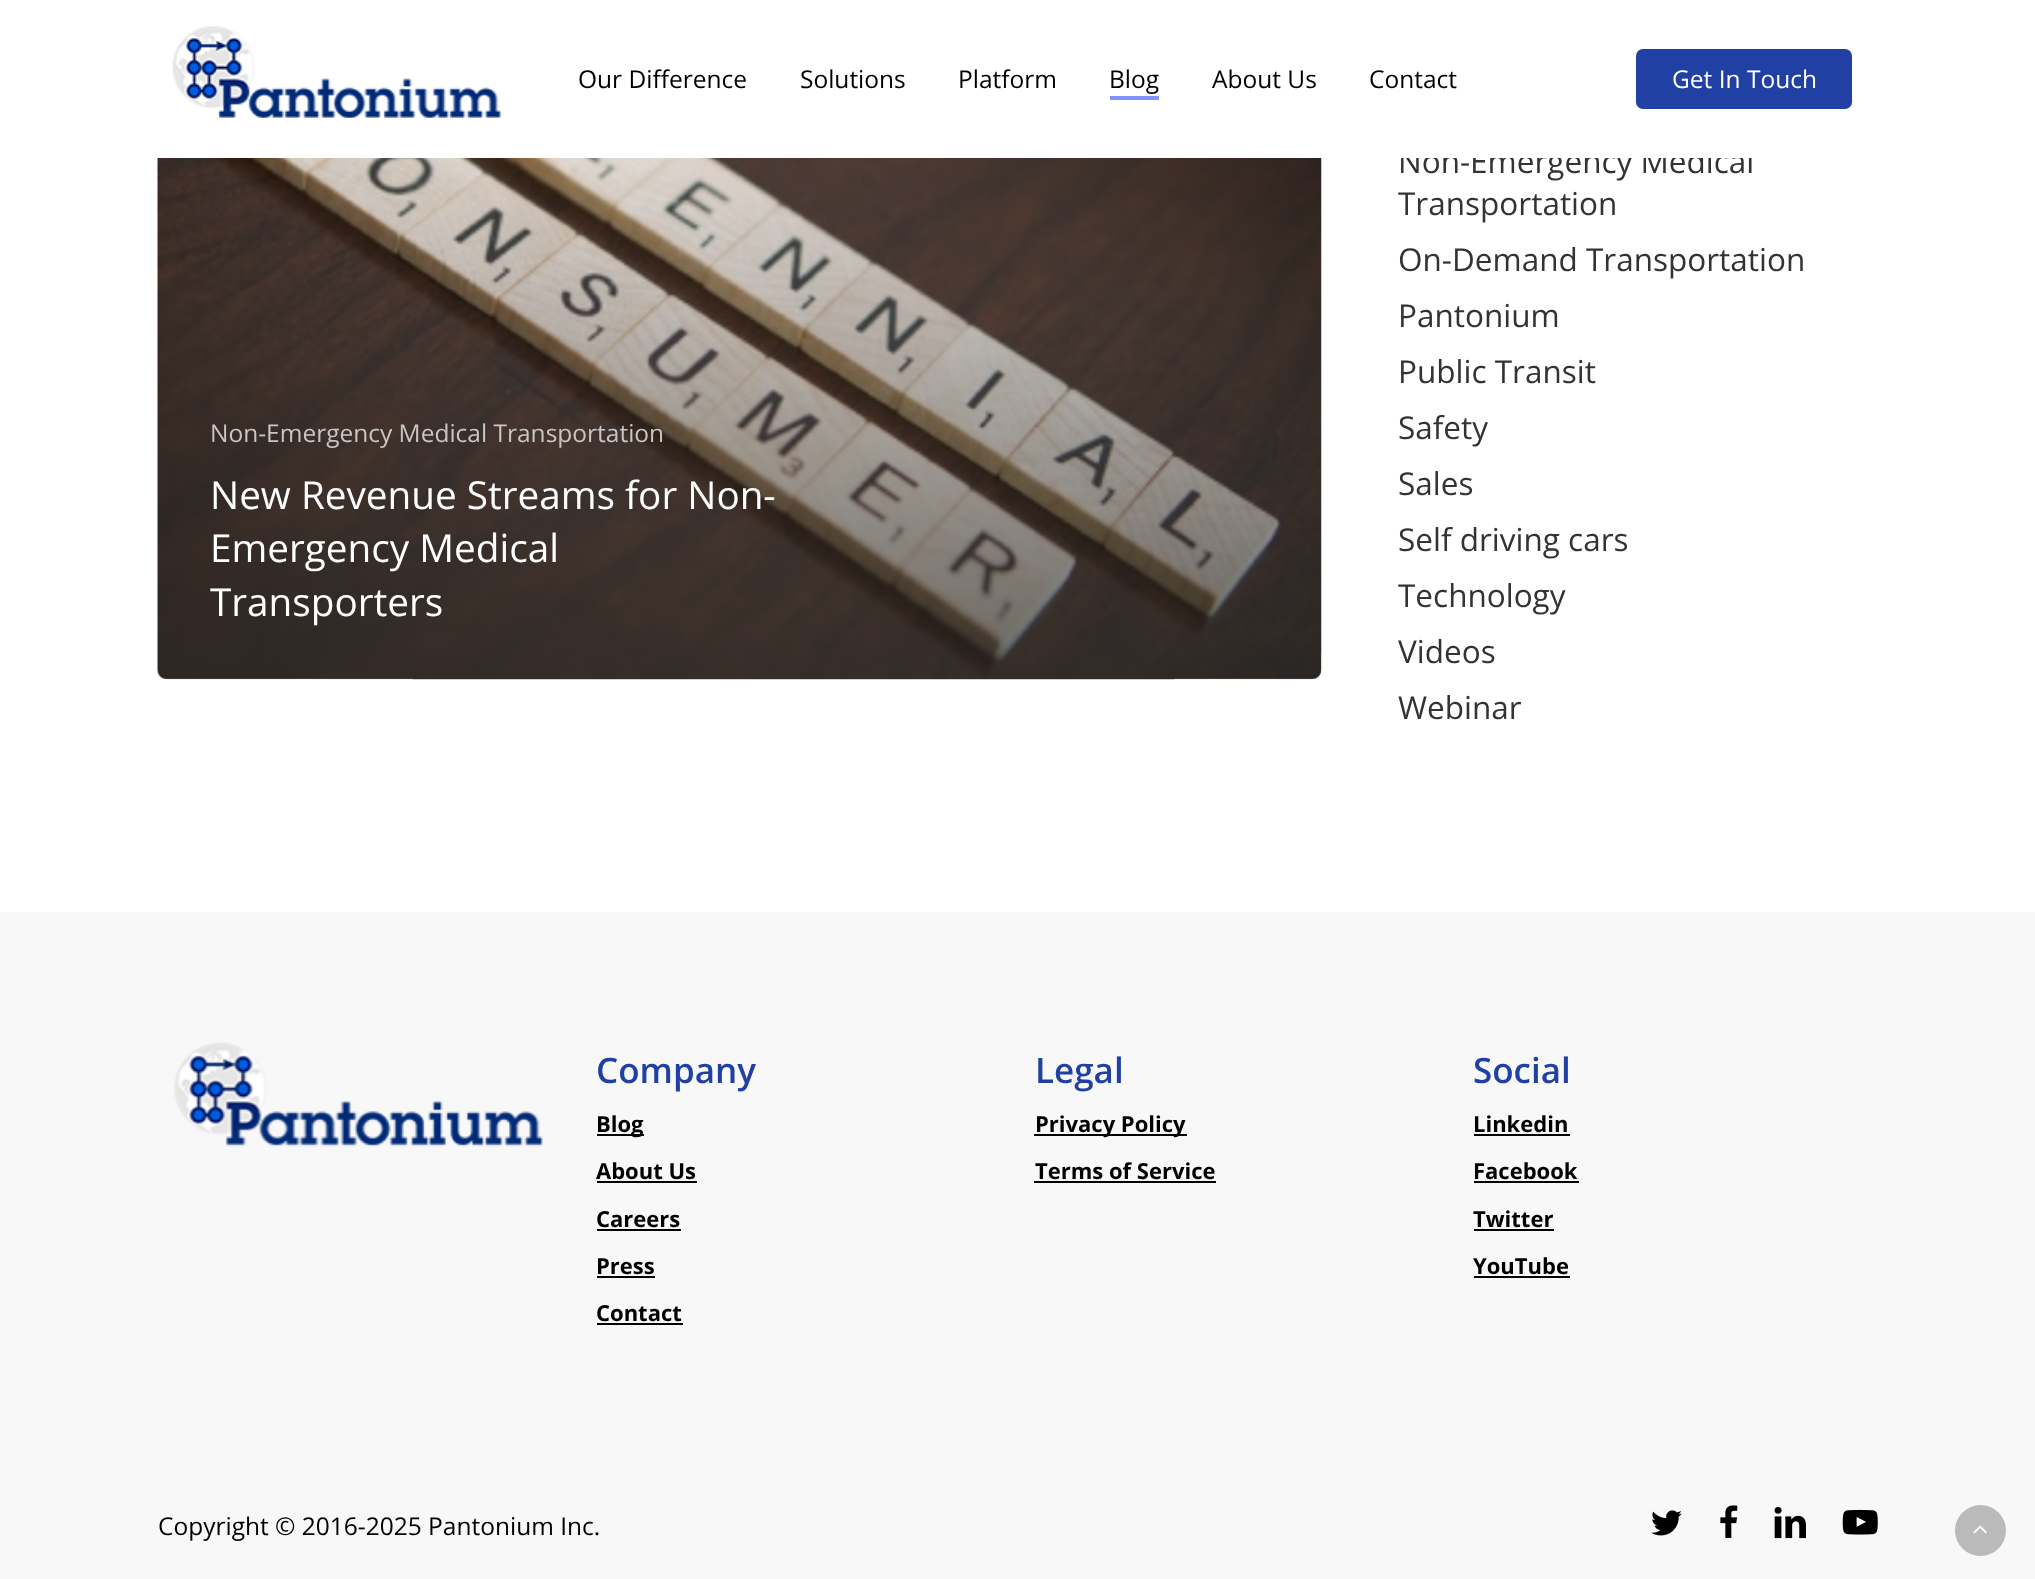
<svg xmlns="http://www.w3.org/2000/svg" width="2035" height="1579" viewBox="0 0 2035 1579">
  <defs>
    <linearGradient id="g1" gradientUnits="userSpaceOnUse" x1="743" y1="87" x2="743" y2="684"><stop offset="0" stop-color="#232323" stop-opacity="0"/><stop offset="1" stop-color="#232323" stop-opacity="0.65"/></linearGradient>
  </defs>
  <rect width="100%" height="100%" fill="#fff"/>
  <rect x="158" y="-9" width="1163" height="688" rx="9" fill="#b3b3b3"/>
  <image x="157" y="158" width="1165" height="522" href="img/2.png"/>
  <path d="M158 88H1321V670C1321 675 1317 679 1312 679H167C162 679 158 675 158 670Z" fill="url(#g1)"/>
  <path d="M0 912h2035v667H0z" fill="#f8f8f8"/>
  <image x="174" y="1042" width="369" height="105" href="img/3.png"/>
  <path d="M597 1134h47v2H597z" fill="#000"/>
  <path d="M597 1181h100v2H597z" fill="#000"/>
  <path d="M597 1229h84v2H597z" fill="#000"/>
  <path d="M597 1276h58v2H597z" fill="#000"/>
  <path d="M597 1323h86v2H597z" fill="#000"/>
  <path d="M1034 1134h153v2H1034z" fill="#000"/>
  <path d="M1034 1181h182v2H1034z" fill="#000"/>
  <path d="M1474 1134h96v2H1474z" fill="#000"/>
  <path d="M1474 1181h105v2H1474z" fill="#000"/>
  <path d="M1474 1229h80v2H1474z" fill="#000"/>
  <path d="M1474 1276h96v2H1474z" fill="#000"/>
  <image x="1651" y="1510" width="31" height="26" href="img/4.png"/>
  <image x="1720" y="1505" width="18" height="33" href="img/5.png"/>
  <image x="1774" y="1507" width="32" height="32" href="img/6.png"/>
  <image x="1842" y="1509" width="36" height="26" href="img/7.png"/>
  <circle cx="1980.5" cy="1530.5" r="25.5" fill="#bababa"/>
  <image x="1973" y="1525" width="14" height="9" href="img/8.png"/>
  <text x="210" y="442" font-family="Open Sans" font-size="24.5" fill="#c8c5c3">Non-Emergency Medical Transportation</text>
  <g font-family="Open Sans" font-size="38.7" fill="#fff">
    <text x="210" y="509">New Revenue Streams for Non-</text>
    <text x="210" y="562">Emergency Medical</text>
    <text x="210" y="616">Transporters</text>
  </g>
  <text x="1398" y="173" font-family="Open Sans" font-size="31.5" fill="#333">Non-Emergency Medical</text>
  <path d="M158 0h1594v158H158z" fill="#fff"/>
  <image x="172" y="26" width="330" height="92" href="img/1.png"/>
  <rect x="1636" y="49" width="216" height="60" rx="7" fill="#2041a3"/>
  <text x="1672" y="88" font-family="Open Sans" font-size="24.5" fill="#fff">Get In Touch</text>
  <g font-family="Open Sans" font-size="24.5" fill="#000">
    <text x="1369" y="88">Contact</text>
    <text x="1212" y="88">About Us</text>
  </g>
  <path d="M1110 96h49v4H1110z" fill="#8292ff"/>
  <g font-family="Open Sans" font-size="24.5" fill="#000">
    <text x="1109" y="88">Blog</text>
    <text x="958" y="88">Platform</text>
    <text x="800" y="88">Solutions</text>
    <text x="578" y="88">Our Difference</text>
  </g>
  <g font-family="Open Sans" font-size="31.5" fill="#333">
    <text x="1398" y="215">Transportation</text>
    <text x="1398" y="271">On-Demand Transportation</text>
    <text x="1398" y="327">Pantonium</text>
    <text x="1398" y="383">Public Transit</text>
    <text x="1398" y="439">Safety</text>
    <text x="1398" y="495">Sales</text>
    <text x="1398" y="551">Self driving cars</text>
    <text x="1398" y="607">Technology</text>
    <text x="1398" y="663">Videos</text>
    <text x="1398" y="719">Webinar</text>
  </g>
  <text x="596" y="1083" font-family="Open Sans" font-size="35" font-weight="600" fill="#2041a3">Company</text>
  <g font-family="Open Sans" font-size="22" font-weight="bold" fill="#000">
    <text x="596" y="1132">Blog</text>
    <text x="596" y="1179">About Us</text>
    <text x="596" y="1227">Careers</text>
    <text x="596" y="1274">Press</text>
    <text x="596" y="1321">Contact</text>
  </g>
  <text x="1035" y="1083" font-family="Open Sans" font-size="35" font-weight="600" fill="#2041a3">Legal</text>
  <g font-family="Open Sans" font-size="22" font-weight="bold" fill="#000">
    <text x="1035" y="1132">Privacy Policy</text>
    <text x="1035" y="1179">Terms of Service</text>
  </g>
  <text x="1473" y="1083" font-family="Open Sans" font-size="35" font-weight="600" fill="#2041a3">Social</text>
  <g font-family="Open Sans" font-size="22" font-weight="bold" fill="#000">
    <text x="1473" y="1132">Linkedin</text>
    <text x="1473" y="1179">Facebook</text>
    <text x="1473" y="1227">Twitter</text>
    <text x="1473" y="1274">YouTube</text>
  </g>
  <text x="158" y="1535" font-family="Open Sans" font-size="24.5" fill="#000">Copyright © 2016-2025 Pantonium Inc.</text>
</svg>
